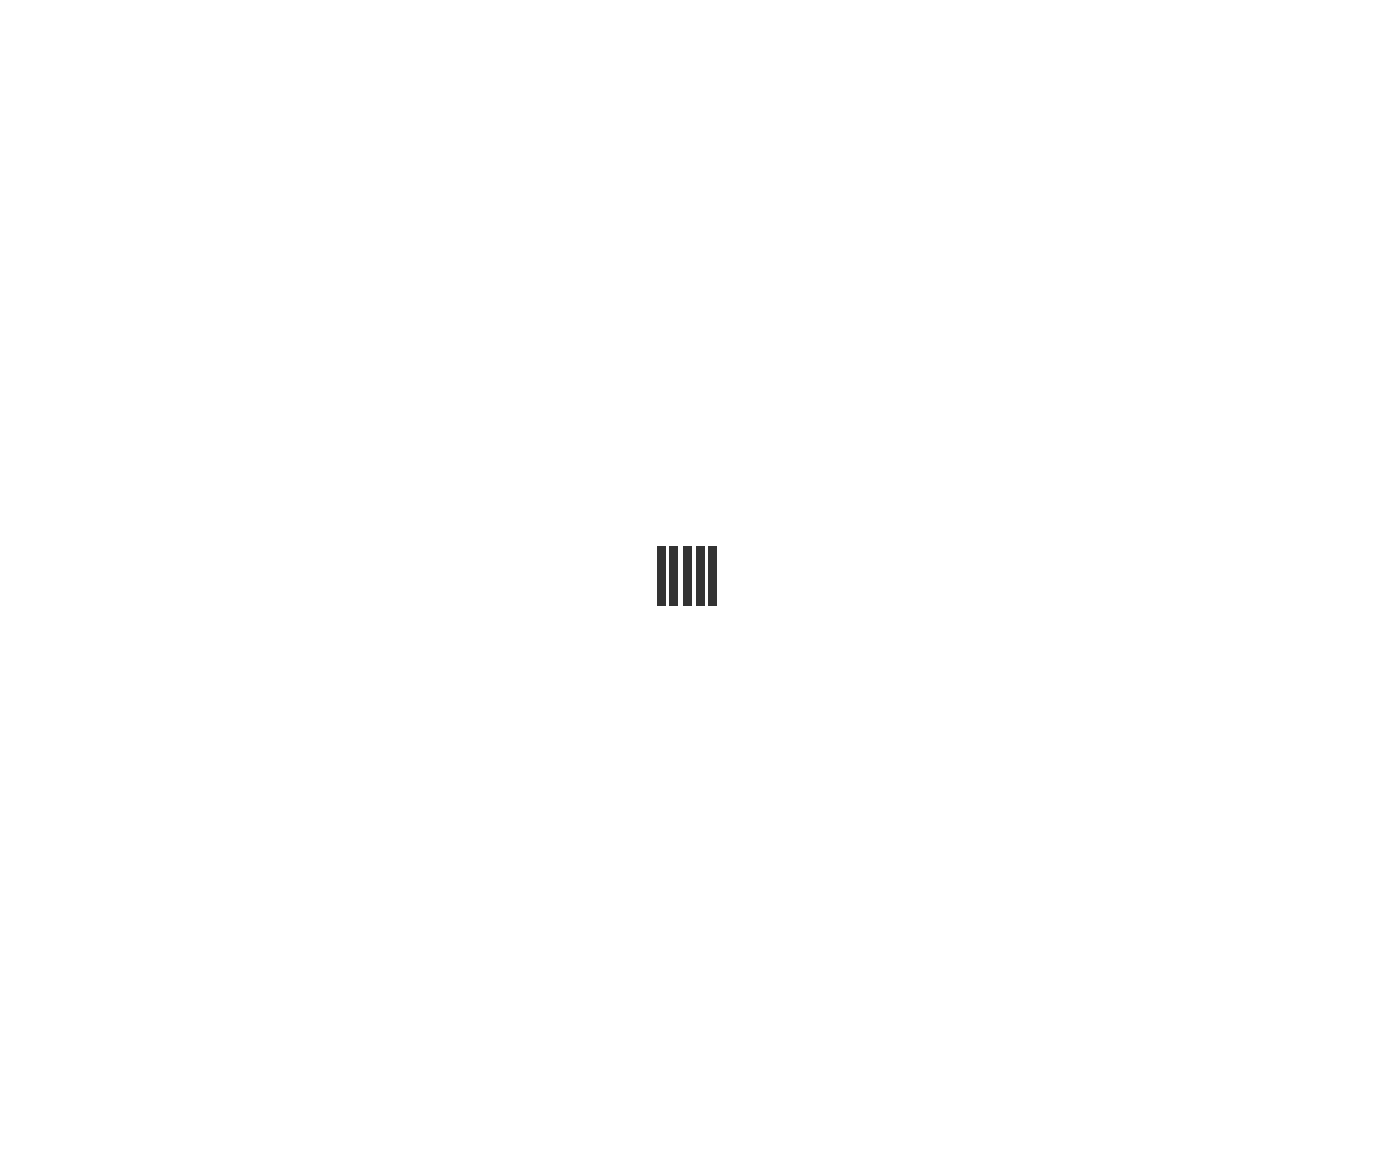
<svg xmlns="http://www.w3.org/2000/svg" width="1373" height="1150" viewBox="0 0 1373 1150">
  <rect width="100%" height="100%" fill="#fff"/>
  <path d="M657 546h9v60H657z" fill="#333"/>
  <path d="M669 546h9v60H669z" fill="#333"/>
  <path d="M683 546h9v60H683z" fill="#333"/>
  <path d="M696 546h9v60H696z" fill="#333"/>
  <path d="M708 546h9v60H708z" fill="#333"/>
</svg>
